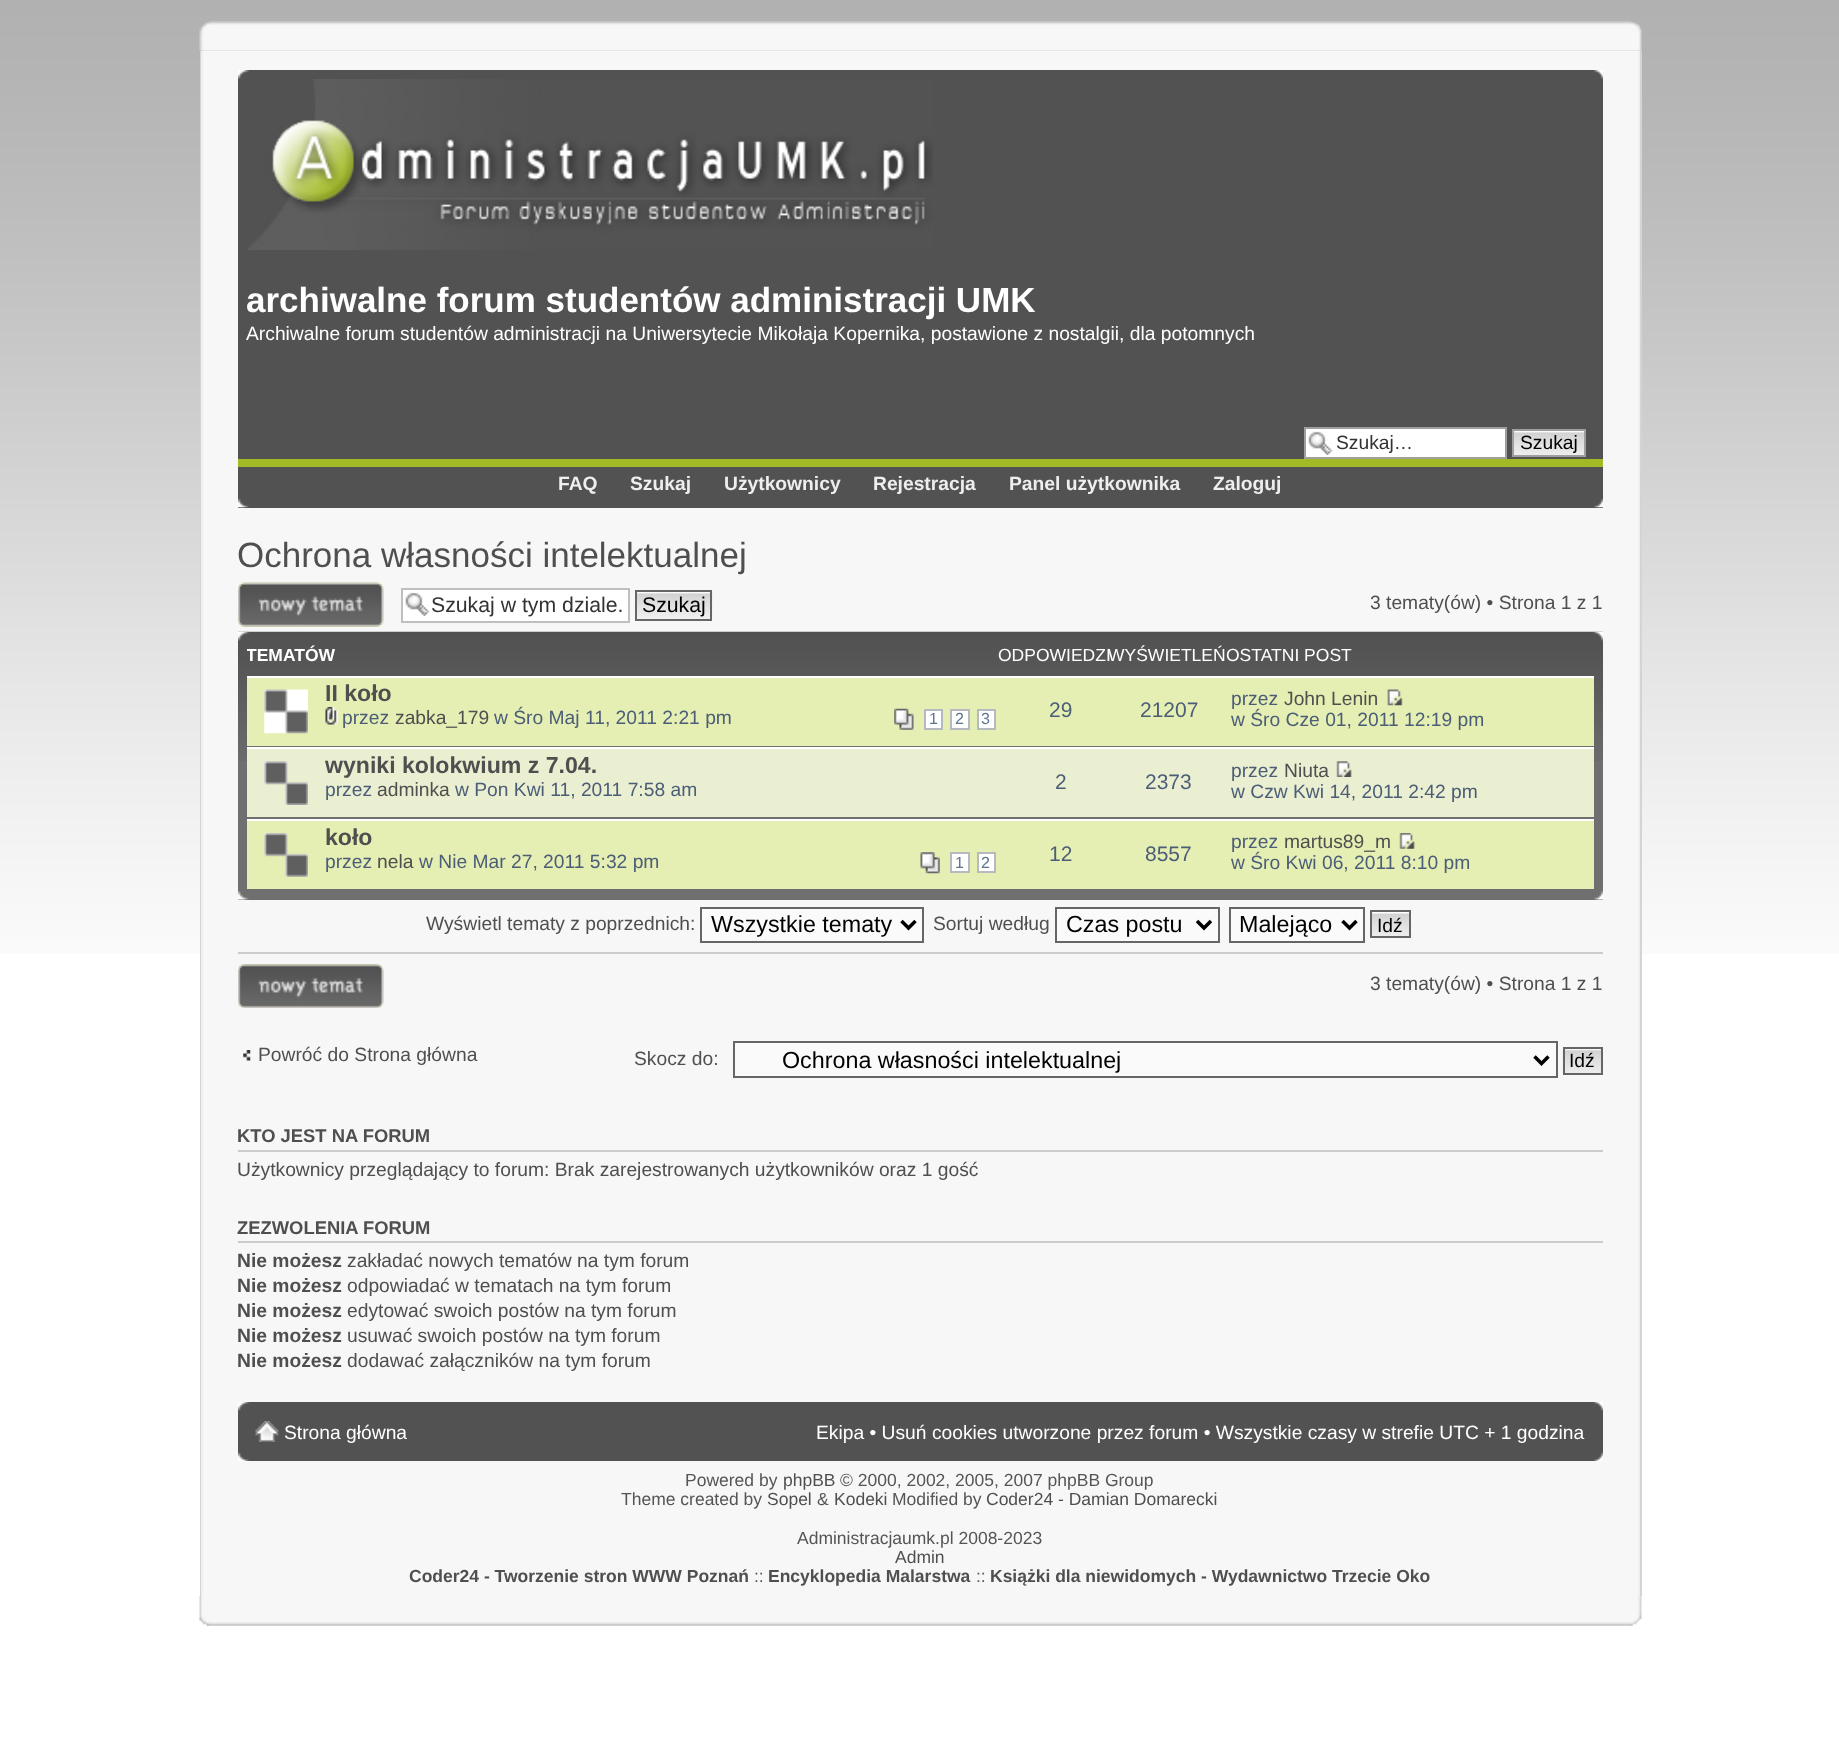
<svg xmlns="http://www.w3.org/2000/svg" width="1839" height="1761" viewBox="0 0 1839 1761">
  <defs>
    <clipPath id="clip1"><path d="M247 641h1347v35H247z"/></clipPath>
  </defs>
  <rect width="100%" height="100%" fill="#fff"/>
  <image x="0" y="0" width="1839" height="954" href="img/1.png"/>
  <image x="199" y="21" width="1443" height="30" href="img/2.png"/>
  <path d="M1640 51h2v1545H1640z" fill="#d4d4d4"/>
  <path d="M200 51h1v1545H200z" fill="#d4d4d4"/>
  <path d="M203 51h1435v1545H203z" fill="#f7f7f7"/>
  <path d="M1638 51h2v1545H1638z" fill="#efefef"/>
  <path d="M201 51h2v1545H201z" fill="#efefef"/>
  <path d="M238 70h1365v389H238z" fill="#525252"/>
  <image x="238" y="70" width="12" height="9" href="img/3.png"/>
  <image x="1593" y="70" width="10" height="9" href="img/4.png"/>
  <image x="247" y="79" width="686" height="171" href="img/5.png"/>
  <path d="M1306 429h199v28H1306z" fill="#fff"/>
  <image x="1308" y="431" width="25" height="24" href="img/6.png"/>
  <path d="M1305 428h201v30H1305z" fill="none" stroke="#9f9f9f" stroke-width="2"/>
  <path d="M1514 431h70v1H1514z" fill="#fafafa"/>
  <image x="1514" y="432" width="70" height="23" href="img/7.png"/>
  <path d="M1513 430h72v26H1513z" fill="none" stroke="#9f9f9f" stroke-width="2"/>
  <path d="M238 459h1365v8H238z" fill="#a2ba25"/>
  <path d="M238 467h1365v41H238z" fill="#525252"/>
  <image x="238" y="498" width="11" height="10" href="img/8.png"/>
  <image x="1594" y="498" width="9" height="10" href="img/9.png"/>
  <image x="238" y="582" width="146" height="45" href="img/10.png"/>
  <image x="238" y="582" width="146" height="45" href="img/11.png"/>
  <path d="M403 590h225v31H403z" fill="#fff"/>
  <image x="405" y="592" width="25" height="24" href="img/12.png"/>
  <path d="M402 589h227v33H402z" fill="none" stroke="#bfbfbf" stroke-width="2"/>
  <path d="M637 592h73v1H637z" fill="#fafafa"/>
  <image x="637" y="593" width="76" height="28" href="img/13.png"/>
  <path d="M636 591h75v29H636z" fill="none" stroke="#666" stroke-width="2"/>
  <path d="M238 761h1365v139H238z" fill="#6f6f6f"/>
  <image x="238" y="631" width="1365" height="130" href="img/14.png"/>
  <image x="238" y="631" width="12" height="10" href="img/15.png"/>
  <image x="1593" y="631" width="10" height="10" href="img/16.png"/>
  <path d="M247 678h1347v68H247z" fill="#e5efb3"/>
  <path d="M247 676h1347v2H247z" fill="#fff"/>
  <path d="M247 746h1347v1H247z" fill="#6f6f6f"/>
  <image x="264" y="689" width="44" height="45" href="img/17.png"/>
  <image x="325" y="707" width="13" height="18" href="img/18.png"/>
  <image x="894" y="708" width="20" height="22" href="img/19.png"/>
  <path d="M925 710h17v19H925z" fill="#fff" stroke="#b4bac0" stroke-width="2"/>
  <path d="M951 710h18v19H951z" fill="#fff" stroke="#b4bac0" stroke-width="2"/>
  <path d="M978 710h17v19H978z" fill="#fff" stroke="#b4bac0" stroke-width="2"/>
  <image x="1387" y="689" width="16" height="17" href="img/20.png"/>
  <path d="M247 749h1347v68H247z" fill="#eaefd1"/>
  <path d="M247 747h1347v2H247z" fill="#fff"/>
  <image x="264" y="761" width="44" height="44" href="img/21.png"/>
  <image x="1336" y="761" width="16" height="16" href="img/22.png"/>
  <path d="M247 821h1347v68H247z" fill="#e5efb3"/>
  <path d="M247 819h1347v2H247z" fill="#fff"/>
  <image x="264" y="833" width="44" height="44" href="img/23.png"/>
  <image x="920" y="852" width="20" height="22" href="img/24.png"/>
  <path d="M951 853h18v19H951z" fill="#fff" stroke="#b4bac0" stroke-width="2"/>
  <path d="M978 853h17v19H978z" fill="#fff" stroke="#b4bac0" stroke-width="2"/>
  <image x="1399" y="833" width="16" height="16" href="img/25.png"/>
  <image x="238" y="890" width="11" height="10" href="img/26.png"/>
  <image x="1594" y="890" width="9" height="10" href="img/27.png"/>
  <path d="M701 908h222v34H701z" fill="#fafafa" stroke="#666" stroke-width="2"/>
  <path d="M901.5 921L908.5 928L915.5 921" fill="none" stroke="#000" stroke-width="3.5"/>
  <path d="M1056 908h163v34H1056z" fill="#fafafa" stroke="#666" stroke-width="2"/>
  <path d="M1197 921L1204 928L1211 921" fill="none" stroke="#000" stroke-width="3.5"/>
  <path d="M1230 908h134v34H1230z" fill="#fafafa" stroke="#666" stroke-width="2"/>
  <path d="M1342.5 921L1349.5 928L1356.5 921" fill="none" stroke="#000" stroke-width="3.5"/>
  <image x="1372" y="912" width="37" height="24" href="img/28.png"/>
  <path d="M1371 911h39v26H1371z" fill="none" stroke="#666" stroke-width="2"/>
  <path d="M238 952h1365v2H238z" fill="#ccc"/>
  <image x="238" y="964" width="146" height="44" href="img/29.png"/>
  <image x="238" y="964" width="146" height="44" href="img/30.png"/>
  <image x="243" y="1050" width="8" height="11" href="img/31.png"/>
  <path d="M734 1042h823v35H734z" fill="#fafafa" stroke="#666" stroke-width="2"/>
  <path d="M1534.5 1056.5L1541.5 1063.5L1548.5 1056.5" fill="none" stroke="#000" stroke-width="3.5"/>
  <image x="1562" y="1049" width="39" height="26" href="img/32.png"/>
  <path d="M1564 1048h38v26H1564z" fill="none" stroke="#666" stroke-width="2"/>
  <path d="M238 1150h1365v2H238z" fill="#ccc"/>
  <path d="M238 1241h1365v2H238z" fill="#ccc"/>
  <path d="M238 1402h1365v59H238z" fill="#525252"/>
  <image x="238" y="1402" width="12" height="9" href="img/33.png"/>
  <image x="1593" y="1402" width="10" height="9" href="img/34.png"/>
  <image x="255" y="1421" width="24" height="21" href="img/35.png"/>
  <image x="238" y="1452" width="11" height="9" href="img/36.png"/>
  <image x="1594" y="1452" width="9" height="9" href="img/37.png"/>
  <image x="199" y="1596" width="1443" height="30" href="img/38.png"/>
  <text x="246" y="312" font-family="Liberation Sans" font-size="35" font-weight="bold" fill="#fff">archiwalne forum studentów administracji UMK</text>
  <text x="246" y="340" font-family="Liberation Sans" font-size="19.25" fill="#fff">Archiwalne forum studentów administracji na Uniwersytecie Mikołaja Kopernika, postawione z nostalgii, dla potomnych</text>
  <text x="1336" y="449" font-family="Liberation Sans" font-size="19.25" fill="#333">Szukaj…</text>
  <text x="1520" y="449" font-family="Liberation Sans" font-size="19.25" fill="#000">Szukaj</text>
  <g font-family="Liberation Sans" font-size="19.25" font-weight="bold" fill="#eee">
    <text x="558" y="490">FAQ</text>
    <text x="630" y="490">Szukaj</text>
    <text x="724" y="490">Użytkownicy</text>
    <text x="873" y="490">Rejestracja</text>
    <text x="1009" y="490">Panel użytkownika</text>
    <text x="1213" y="490">Zaloguj</text>
  </g>
  <text x="237" y="567" font-family="Liberation Sans" font-size="35" fill="#4f4f4f">Ochrona własności intelektualnej</text>
  <text x="431" y="612" font-family="Liberation Sans" font-size="21.25" fill="#333">Szukaj w tym dziale.</text>
  <text x="642" y="612" font-family="Liberation Sans" font-size="21.25" fill="#000">Szukaj</text>
  <text x="1370" y="609" font-family="Liberation Sans" font-size="19.25" fill="#4f4f4f">3 tematy(ów) • Strona 1 z 1</text>
  <g clip-path="url(#clip1)">
    <text x="246" y="661" font-family="Liberation Sans" font-size="17.5" font-weight="bold" fill="#fff">TEMATÓW</text>
  </g>
  <g font-family="Liberation Sans" font-size="17.5" fill="#fff">
    <text x="998" y="661">ODPOWIEDZI</text>
    <text x="1108" y="661">WYŚWIETLEŃ</text>
    <text x="1226" y="661">OSTATNI POST</text>
  </g>
  <text x="325" y="701" font-family="Liberation Sans" font-size="23.1" font-weight="bold" fill="#4f4f4f">II koło</text>
  <text x="342" y="724" font-family="Liberation Sans" font-size="19.25" fill="#4c5d77">przez</text>
  <text x="395" y="724" font-family="Liberation Sans" font-size="19.25" fill="#4f4f4f">zabka_179</text>
  <text x="494" y="724" font-family="Liberation Sans" font-size="19.25" fill="#4c5d77">w Śro Maj 11, 2011 2:21 pm</text>
  <g font-family="Liberation Sans" font-size="16" fill="#5c758c">
    <text x="929" y="724">1</text>
    <text x="955" y="724">2</text>
    <text x="981" y="724">3</text>
  </g>
  <g font-family="Liberation Sans" font-size="21" fill="#4c5d77">
    <text x="1049" y="717">29</text>
    <text x="1140" y="717">21207</text>
  </g>
  <text x="1231" y="705" font-family="Liberation Sans" font-size="19.25" fill="#4c5d77">przez</text>
  <text x="1284" y="705" font-family="Liberation Sans" font-size="19.25" fill="#4f4f4f">John Lenin</text>
  <text x="1231" y="726" font-family="Liberation Sans" font-size="19.25" fill="#4c5d77">w Śro Cze 01, 2011 12:19 pm</text>
  <text x="325" y="773" font-family="Liberation Sans" font-size="23.1" font-weight="bold" fill="#4f4f4f">wyniki kolokwium z 7.04.</text>
  <text x="325" y="796" font-family="Liberation Sans" font-size="19.25" fill="#4c5d77">przez</text>
  <text x="377" y="796" font-family="Liberation Sans" font-size="19.25" fill="#4f4f4f">adminka</text>
  <text x="455" y="796" font-family="Liberation Sans" font-size="19.25" fill="#4c5d77">w Pon Kwi 11, 2011 7:58 am</text>
  <g font-family="Liberation Sans" font-size="21" fill="#4c5d77">
    <text x="1055" y="789">2</text>
    <text x="1145" y="789">2373</text>
  </g>
  <text x="1231" y="777" font-family="Liberation Sans" font-size="19.25" fill="#4c5d77">przez</text>
  <text x="1284" y="777" font-family="Liberation Sans" font-size="19.25" fill="#4f4f4f">Niuta</text>
  <text x="1231" y="798" font-family="Liberation Sans" font-size="19.25" fill="#4c5d77">w Czw Kwi 14, 2011 2:42 pm</text>
  <text x="325" y="845" font-family="Liberation Sans" font-size="23.1" font-weight="bold" fill="#4f4f4f">koło</text>
  <text x="325" y="868" font-family="Liberation Sans" font-size="19.25" fill="#4c5d77">przez</text>
  <text x="377" y="868" font-family="Liberation Sans" font-size="19.25" fill="#4f4f4f">nela</text>
  <text x="419" y="868" font-family="Liberation Sans" font-size="19.25" fill="#4c5d77">w Nie Mar 27, 2011 5:32 pm</text>
  <g font-family="Liberation Sans" font-size="16" fill="#5c758c">
    <text x="955" y="868">1</text>
    <text x="981" y="868">2</text>
  </g>
  <g font-family="Liberation Sans" font-size="21" fill="#4c5d77">
    <text x="1049" y="861">12</text>
    <text x="1145" y="861">8557</text>
  </g>
  <text x="1231" y="848" font-family="Liberation Sans" font-size="19.25" fill="#4c5d77">przez</text>
  <text x="1284" y="848" font-family="Liberation Sans" font-size="19.25" fill="#4f4f4f">martus89_m</text>
  <text x="1231" y="869" font-family="Liberation Sans" font-size="19.25" fill="#4c5d77">w Śro Kwi 06, 2011 8:10 pm</text>
  <text x="426" y="930" font-family="Liberation Sans" font-size="19.25" fill="#4f4f4f">Wyświetl tematy z poprzednich:</text>
  <text x="711" y="932" font-family="Liberation Sans" font-size="23.3" fill="#000">Wszystkie tematy</text>
  <text x="933" y="930" font-family="Liberation Sans" font-size="19.25" fill="#4f4f4f">Sortuj według</text>
  <g font-family="Liberation Sans" font-size="23.3" fill="#000">
    <text x="1066" y="932">Czas postu</text>
    <text x="1239" y="932">Malejąco</text>
  </g>
  <text x="1377" y="932" font-family="Liberation Sans" font-size="19.25" fill="#000">Idź</text>
  <g font-family="Liberation Sans" font-size="19.25" fill="#4f4f4f">
    <text x="1370" y="990">3 tematy(ów) • Strona 1 z 1</text>
    <text x="258" y="1061">Powróć do Strona główna</text>
    <text x="634" y="1065">Skocz do:</text>
  </g>
  <text x="782" y="1068" font-family="Liberation Sans" font-size="23.3" fill="#000">Ochrona własności intelektualnej</text>
  <text x="1569" y="1067" font-family="Liberation Sans" font-size="19.25" fill="#000">Idź</text>
  <text x="237" y="1142" font-family="Liberation Sans" font-size="18.4" font-weight="bold" fill="#4f4f4f">KTO JEST NA FORUM</text>
  <text x="237" y="1176" font-family="Liberation Sans" font-size="19.25" fill="#4f4f4f">Użytkownicy przeglądający to forum: Brak zarejestrowanych użytkowników oraz 1 gość</text>
  <text x="237" y="1234" font-family="Liberation Sans" font-size="18.4" font-weight="bold" fill="#4f4f4f">ZEZWOLENIA FORUM</text>
  <text x="237" y="1267" font-family="Liberation Sans" font-size="19.25" font-weight="bold" fill="#4f4f4f">Nie możesz</text>
  <text x="347" y="1267" font-family="Liberation Sans" font-size="19.25" fill="#4f4f4f">zakładać nowych tematów na tym forum</text>
  <text x="237" y="1292" font-family="Liberation Sans" font-size="19.25" font-weight="bold" fill="#4f4f4f">Nie możesz</text>
  <text x="347" y="1292" font-family="Liberation Sans" font-size="19.25" fill="#4f4f4f">odpowiadać w tematach na tym forum</text>
  <text x="237" y="1317" font-family="Liberation Sans" font-size="19.25" font-weight="bold" fill="#4f4f4f">Nie możesz</text>
  <text x="347" y="1317" font-family="Liberation Sans" font-size="19.25" fill="#4f4f4f">edytować swoich postów na tym forum</text>
  <text x="237" y="1342" font-family="Liberation Sans" font-size="19.25" font-weight="bold" fill="#4f4f4f">Nie możesz</text>
  <text x="347" y="1342" font-family="Liberation Sans" font-size="19.25" fill="#4f4f4f">usuwać swoich postów na tym forum</text>
  <text x="237" y="1367" font-family="Liberation Sans" font-size="19.25" font-weight="bold" fill="#4f4f4f">Nie możesz</text>
  <text x="347" y="1367" font-family="Liberation Sans" font-size="19.25" fill="#4f4f4f">dodawać załączników na tym forum</text>
  <g font-family="Liberation Sans" font-size="19.25" fill="#fff">
    <text x="284" y="1439">Strona główna</text>
    <text x="816" y="1439">Ekipa • Usuń cookies utworzone przez forum • Wszystkie czasy w strefie UTC + 1 godzina</text>
  </g>
  <text x="685" y="1486" font-family="Liberation Sans" font-size="17.5" fill="#555">Powered by</text>
  <text x="783" y="1486" font-family="Liberation Sans" font-size="17.5" fill="#4f4f4f">phpBB</text>
  <g font-family="Liberation Sans" font-size="17.5" fill="#555">
    <text x="840" y="1486">© 2000, 2002, 2005, 2007 phpBB Group</text>
    <text x="621" y="1505">Theme created by</text>
  </g>
  <text x="767" y="1505" font-family="Liberation Sans" font-size="17.5" fill="#4f4f4f">Sopel</text>
  <text x="817" y="1505" font-family="Liberation Sans" font-size="17.5" fill="#555">&amp;</text>
  <text x="834" y="1505" font-family="Liberation Sans" font-size="17.5" fill="#4f4f4f">Kodeki</text>
  <text x="892" y="1505" font-family="Liberation Sans" font-size="17.5" fill="#555">Modified by</text>
  <text x="986" y="1505" font-family="Liberation Sans" font-size="17.5" fill="#4f4f4f">Coder24 - Damian Domarecki</text>
  <text x="797" y="1544" font-family="Liberation Sans" font-size="17.5" fill="#555">Administracjaumk.pl 2008-2023</text>
  <text x="895" y="1563" font-family="Liberation Sans" font-size="17.5" fill="#4f4f4f">Admin</text>
  <text x="409" y="1582" font-family="Liberation Sans" font-size="17.5" font-weight="bold" fill="#4f4f4f">Coder24 - Tworzenie stron WWW Poznań</text>
  <text x="754" y="1582" font-family="Liberation Sans" font-size="17.5" fill="#555">::</text>
  <text x="768" y="1582" font-family="Liberation Sans" font-size="17.5" font-weight="bold" fill="#4f4f4f">Encyklopedia Malarstwa</text>
  <text x="976" y="1582" font-family="Liberation Sans" font-size="17.5" fill="#555">::</text>
  <text x="990" y="1582" font-family="Liberation Sans" font-size="17.5" font-weight="bold" fill="#4f4f4f">Książki dla niewidomych - Wydawnictwo Trzecie Oko</text>
</svg>
